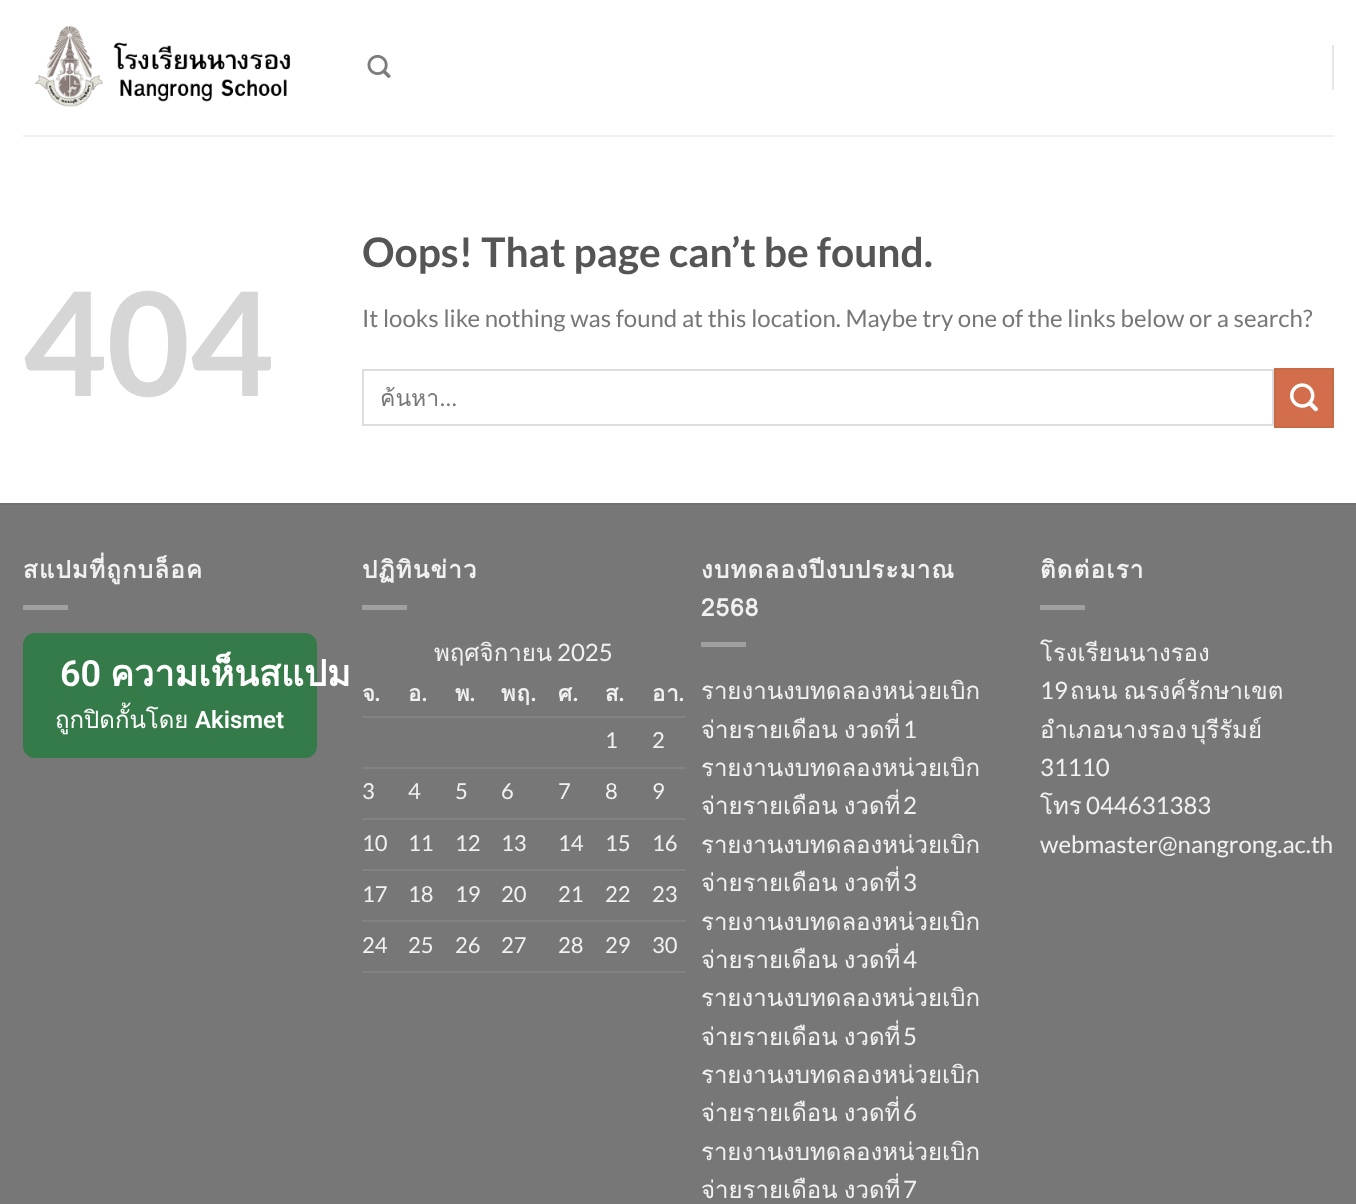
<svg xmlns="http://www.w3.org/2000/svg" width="1356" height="1204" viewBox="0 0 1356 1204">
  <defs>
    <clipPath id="clip1"><path d="M381 380h869v37H381z"/></clipPath>
  </defs>
  <rect width="100%" height="100%" fill="#fff"/>
  <image x="35" y="25" width="256" height="82" href="img/1.png"/>
  <image x="367" y="54" width="24" height="24" href="img/2.png"/>
  <path d="M1332 45h2v45H1332z" fill="#e6e6e6"/>
  <path d="M23 135h1311v2H23z" fill="#f1f1f1"/>
  <path d="M363 370h910v55H363z" fill="none" stroke="#ddd" stroke-width="2"/>
  <path d="M1275 369h58v58H1275z" fill="#d26e4b" stroke="#c86947" stroke-width="2"/>
  <image x="1290" y="383" width="28" height="29" href="img/3.png"/>
  <path d="M0 505h1356v699H0z" fill="#777"/>
  <path d="M0 503h1356v2H0z" fill="#717171"/>
  <path d="M23 605h45v5H23z" fill="#a0a0a0"/>
  <rect x="23" y="633" width="294" height="125" rx="12" fill="#357b49"/>
  <path d="M362 605h45v5H362z" fill="#a0a0a0"/>
  <path d="M362 716h324v2H362z" fill="#828282"/>
  <path d="M362 767h324v2H362z" fill="#828282"/>
  <path d="M362 818h324v2H362z" fill="#828282"/>
  <path d="M362 869h324v2H362z" fill="#828282"/>
  <path d="M362 920h324v2H362z" fill="#828282"/>
  <path d="M362 971h324v2H362z" fill="#828282"/>
  <path d="M701 642h45v5H701z" fill="#a0a0a0"/>
  <path d="M1040 605h45v5H1040z" fill="#a0a0a0"/>
  <text x="23" y="396" font-family="Lato" font-size="144" font-weight="bold" fill="#d6d6d6">404</text>
  <text x="362" y="267" font-family="Lato" font-size="40.75" font-weight="bold" fill="#555">Oops! That page can’t be found.</text>
  <text x="362" y="327" font-family="Lato" font-size="24" fill="#777">It looks like nothing was found at this location. Maybe try one of the links below or a search?</text>
  <g clip-path="url(#clip1)">
    <text x="380" y="406" font-family="Loma" font-size="23" fill="#777">ค้นหา</text>
  </g>
  <text x="440" y="406" font-family="Lato" font-size="23" fill="#777">…</text>
  <text x="23" y="578" font-family="Loma" font-size="24" font-weight="bold" letter-spacing="1.25" fill="#f1f1f1">สแปมที่ถูกบล็อค</text>
  <text x="60" y="686" font-family="Roboto" font-size="36" font-weight="600" fill="#fff">60</text>
  <text x="110" y="686" font-family="Loma" font-size="36" font-weight="bold" fill="#fff">ความเห็นสแปม</text>
  <text x="55" y="728" font-family="Loma" font-size="24" fill="#fff">ถูกปิดกั้นโดย</text>
  <text x="195" y="728" font-family="Roboto" font-size="24" font-weight="600" fill="#fff">Akismet</text>
  <text x="362" y="578" font-family="Loma" font-size="24" font-weight="bold" letter-spacing="1.25" fill="#f1f1f1">ปฏิทินข่าว</text>
  <text x="434" y="661" font-family="Loma" font-size="24" fill="#f1f1f1">พฤศจิกายน</text>
  <text x="557" y="661" font-family="Lato" font-size="24" fill="#f1f1f1">2025</text>
  <text x="362" y="701" font-family="Loma" font-size="22" font-weight="bold" letter-spacing="1" fill="#f1f1f1">จ</text>
  <text x="375" y="701" font-family="Lato" font-size="22" font-weight="bold" letter-spacing="1" fill="#f1f1f1">.</text>
  <text x="408" y="701" font-family="Loma" font-size="22" font-weight="bold" letter-spacing="1" fill="#f1f1f1">อ</text>
  <text x="422" y="701" font-family="Lato" font-size="22" font-weight="bold" letter-spacing="1" fill="#f1f1f1">.</text>
  <text x="455" y="701" font-family="Loma" font-size="22" font-weight="bold" letter-spacing="1" fill="#f1f1f1">พ</text>
  <text x="470" y="701" font-family="Lato" font-size="22" font-weight="bold" letter-spacing="1" fill="#f1f1f1">.</text>
  <text x="501" y="701" font-family="Loma" font-size="22" font-weight="bold" letter-spacing="1" fill="#f1f1f1">พฤ</text>
  <text x="531" y="701" font-family="Lato" font-size="22" font-weight="bold" letter-spacing="1" fill="#f1f1f1">.</text>
  <text x="558" y="701" font-family="Loma" font-size="22" font-weight="bold" letter-spacing="1" fill="#f1f1f1">ศ</text>
  <text x="573" y="701" font-family="Lato" font-size="22" font-weight="bold" letter-spacing="1" fill="#f1f1f1">.</text>
  <text x="605" y="701" font-family="Loma" font-size="22" font-weight="bold" letter-spacing="1" fill="#f1f1f1">ส</text>
  <text x="619" y="701" font-family="Lato" font-size="22" font-weight="bold" letter-spacing="1" fill="#f1f1f1">.</text>
  <text x="652" y="701" font-family="Loma" font-size="22" font-weight="bold" letter-spacing="1" fill="#f1f1f1">อา</text>
  <text x="679" y="701" font-family="Lato" font-size="22" font-weight="bold" letter-spacing="1" fill="#f1f1f1">.</text>
  <g font-family="Lato" font-size="22" fill="#f1f1f1">
    <text x="605" y="748">1</text>
    <text x="652" y="748">2</text>
    <text x="362" y="799">3</text>
    <text x="408" y="799">4</text>
    <text x="455" y="799">5</text>
    <text x="501" y="799">6</text>
    <text x="558" y="799">7</text>
    <text x="605" y="799">8</text>
    <text x="652" y="799">9</text>
    <text x="362" y="851">10</text>
    <text x="408" y="851">11</text>
    <text x="455" y="851">12</text>
    <text x="501" y="851">13</text>
    <text x="558" y="851">14</text>
    <text x="605" y="851">15</text>
    <text x="652" y="851">16</text>
    <text x="362" y="902">17</text>
    <text x="408" y="902">18</text>
    <text x="455" y="902">19</text>
    <text x="501" y="902">20</text>
    <text x="558" y="902">21</text>
    <text x="605" y="902">22</text>
    <text x="652" y="902">23</text>
    <text x="362" y="953">24</text>
    <text x="408" y="953">25</text>
    <text x="455" y="953">26</text>
    <text x="501" y="953">27</text>
    <text x="558" y="953">28</text>
    <text x="605" y="953">29</text>
    <text x="652" y="953">30</text>
  </g>
  <g font-family="Loma" font-size="24" font-weight="bold" letter-spacing="1.25" fill="#f1f1f1">
    <text x="701" y="578">งบทดลองปีงบประมาณ</text>
    <text x="701" y="616">2568</text>
  </g>
  <g font-family="Loma" font-size="24" fill="#f1f1f1">
    <text x="701" y="699">รายงานงบทดลองหน่วยเบิก</text>
    <text x="701" y="738" word-spacing="-2">จ่ายรายเดือน งวดที่</text>
  </g>
  <text x="903" y="738" font-family="Lato" font-size="24" fill="#f1f1f1">1</text>
  <g font-family="Loma" font-size="24" fill="#f1f1f1">
    <text x="701" y="776">รายงานงบทดลองหน่วยเบิก</text>
    <text x="701" y="814" word-spacing="-2">จ่ายรายเดือน งวดที่</text>
  </g>
  <text x="903" y="814" font-family="Lato" font-size="24" fill="#f1f1f1">2</text>
  <g font-family="Loma" font-size="24" fill="#f1f1f1">
    <text x="701" y="853">รายงานงบทดลองหน่วยเบิก</text>
    <text x="701" y="891" word-spacing="-2">จ่ายรายเดือน งวดที่</text>
  </g>
  <text x="903" y="891" font-family="Lato" font-size="24" fill="#f1f1f1">3</text>
  <g font-family="Loma" font-size="24" fill="#f1f1f1">
    <text x="701" y="930">รายงานงบทดลองหน่วยเบิก</text>
    <text x="701" y="968" word-spacing="-2">จ่ายรายเดือน งวดที่</text>
  </g>
  <text x="903" y="968" font-family="Lato" font-size="24" fill="#f1f1f1">4</text>
  <g font-family="Loma" font-size="24" fill="#f1f1f1">
    <text x="701" y="1006">รายงานงบทดลองหน่วยเบิก</text>
    <text x="701" y="1045" word-spacing="-2">จ่ายรายเดือน งวดที่</text>
  </g>
  <text x="903" y="1045" font-family="Lato" font-size="24" fill="#f1f1f1">5</text>
  <g font-family="Loma" font-size="24" fill="#f1f1f1">
    <text x="701" y="1083">รายงานงบทดลองหน่วยเบิก</text>
    <text x="701" y="1121" word-spacing="-2">จ่ายรายเดือน งวดที่</text>
  </g>
  <text x="903" y="1121" font-family="Lato" font-size="24" fill="#f1f1f1">6</text>
  <g font-family="Loma" font-size="24" fill="#f1f1f1">
    <text x="701" y="1160">รายงานงบทดลองหน่วยเบิก</text>
    <text x="701" y="1198" word-spacing="-2">จ่ายรายเดือน งวดที่</text>
  </g>
  <text x="903" y="1198" font-family="Lato" font-size="24" fill="#f1f1f1">7</text>
  <text x="1040" y="578" font-family="Loma" font-size="24" font-weight="bold" letter-spacing="1.25" fill="#f1f1f1">ติดต่อเรา</text>
  <text x="1040" y="661" font-family="Loma" font-size="24" fill="#f1f1f1">โรงเรียนนางรอง</text>
  <text x="1040" y="699" font-family="Lato" font-size="24" fill="#f1f1f1">19</text>
  <g font-family="Loma" font-size="24" fill="#f1f1f1">
    <text x="1070" y="699" word-spacing="-2">ถนน ณรงค์รักษาเขต</text>
    <text x="1040" y="738" word-spacing="-4">อำเภอนางรอง บุรีรัมย์</text>
  </g>
  <text x="1040" y="776" font-family="Lato" font-size="24" fill="#f1f1f1">31110</text>
  <text x="1040" y="814" font-family="Loma" font-size="24" fill="#f1f1f1">โทร</text>
  <g font-family="Lato" font-size="24" fill="#f1f1f1">
    <text x="1086" y="814">044631383</text>
    <text x="1040" y="853">webmaster@nangrong.ac.th</text>
  </g>
</svg>
